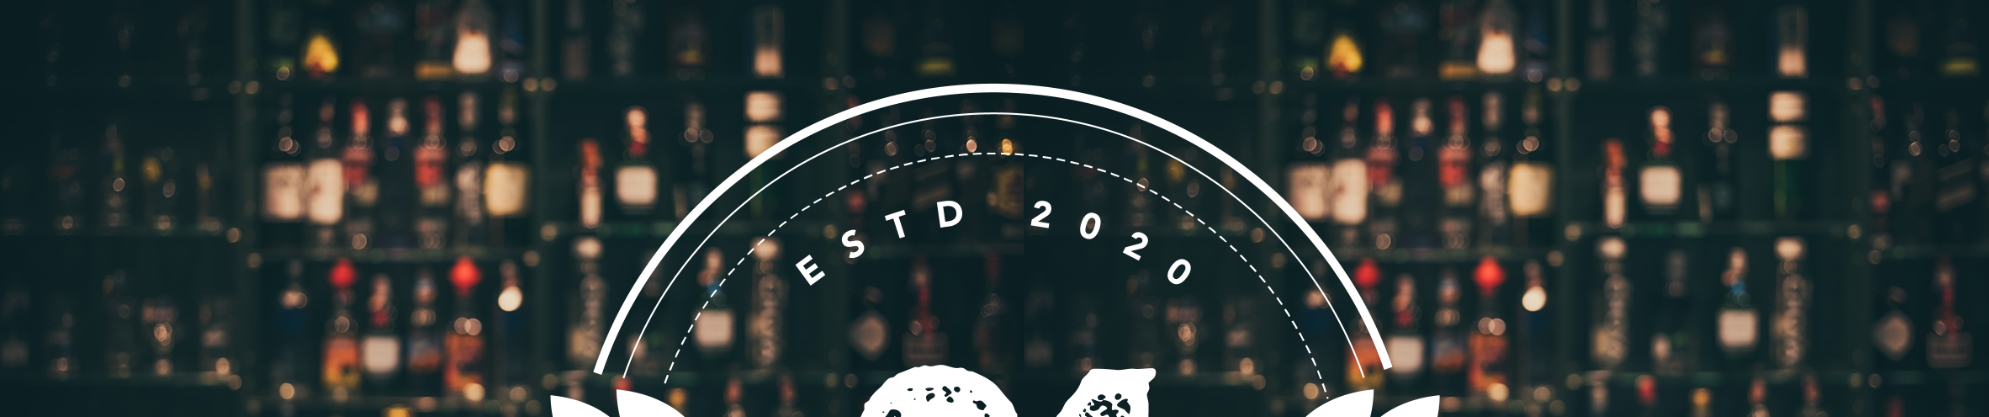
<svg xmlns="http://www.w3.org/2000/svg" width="1989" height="417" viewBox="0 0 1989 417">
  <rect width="100%" height="100%" fill="#fff"/>
  <image x="0" y="0" width="1989" height="417" href="img/1.png"/>
  <image x="550" y="83" width="890" height="334" href="img/2.png"/>
</svg>
